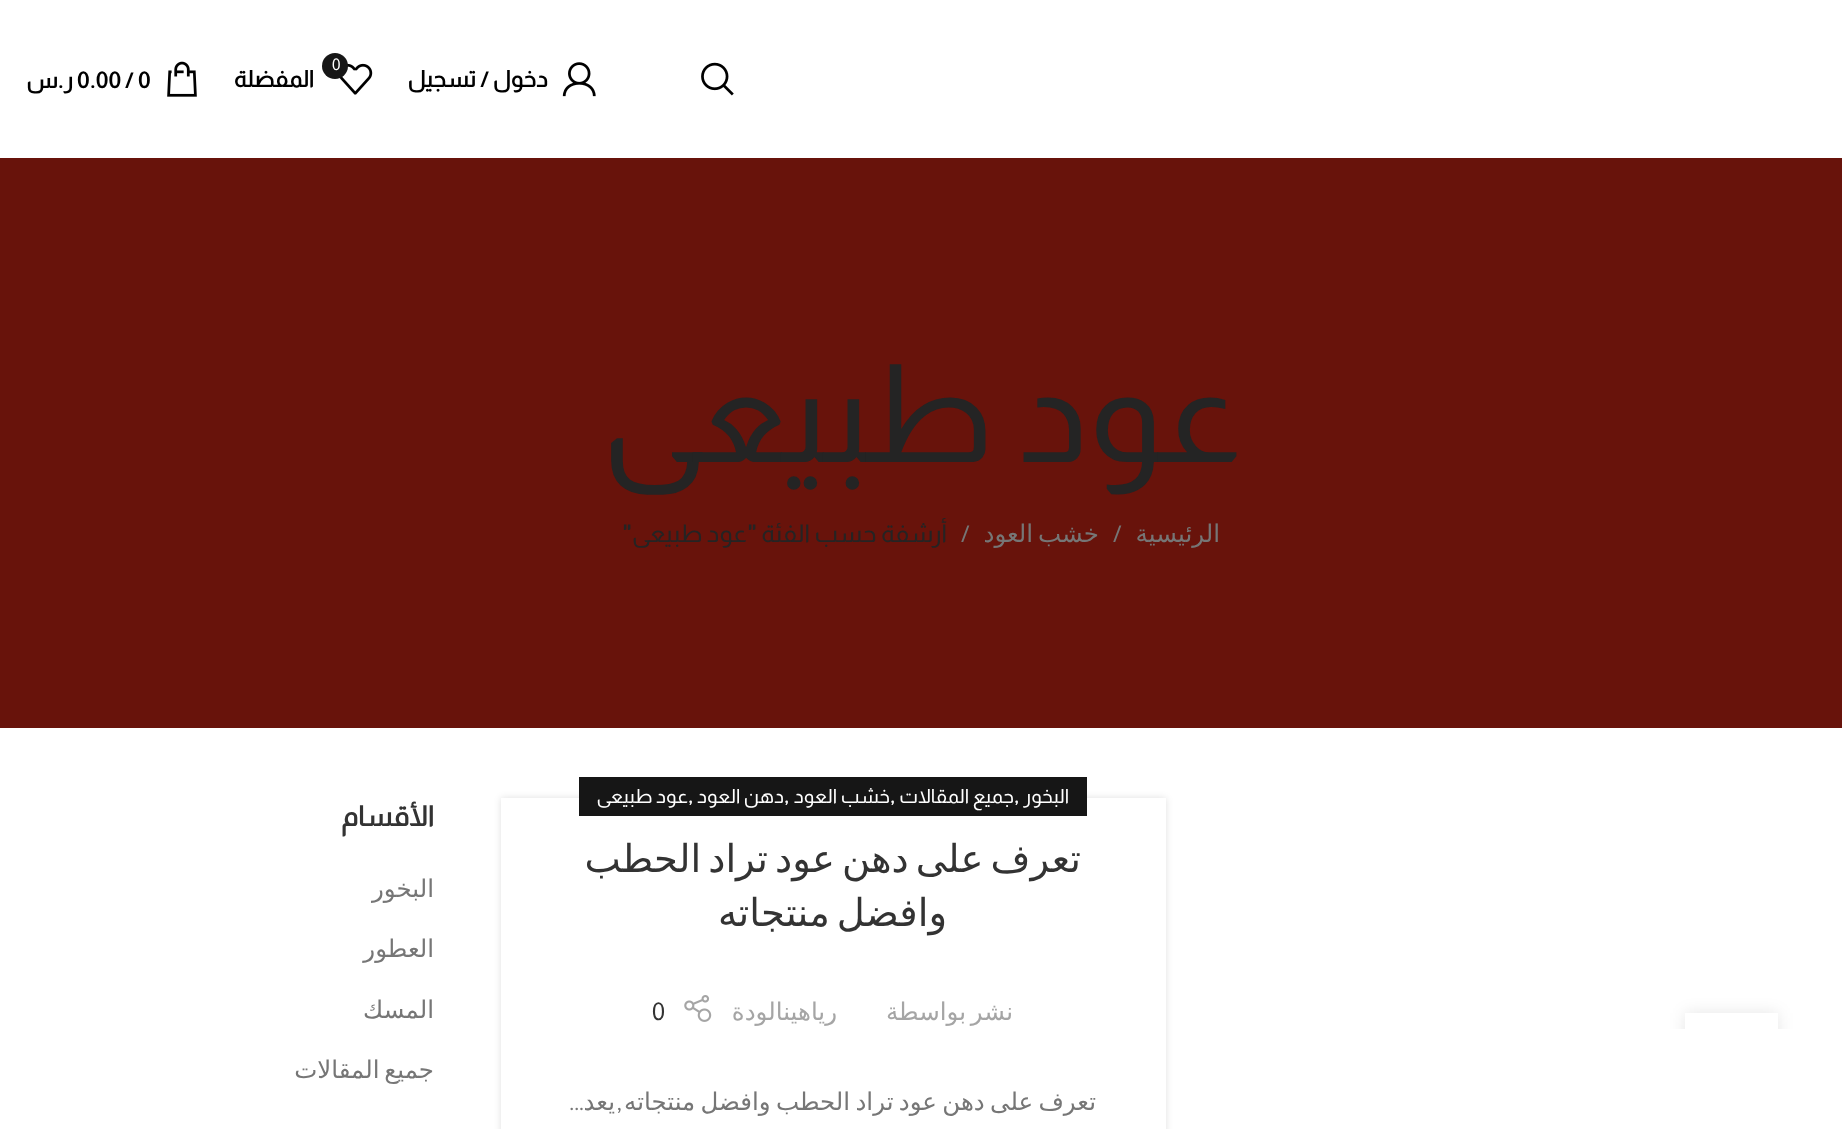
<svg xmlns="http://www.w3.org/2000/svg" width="1842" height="1129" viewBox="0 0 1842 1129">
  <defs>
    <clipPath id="clip1"><path d="M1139 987h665v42H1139z"/></clipPath>
  </defs>
  <rect width="100%" height="100%" fill="#fff"/>
  <image x="701" y="62" width="33" height="34" href="img/1.png"/>
  <image x="562" y="62" width="34" height="35" href="img/2.png"/>
  <image x="339" y="63" width="34" height="32" href="img/3.png"/>
  <circle cx="335" cy="66" r="13" fill="#161616"/>
  <image x="167" y="61" width="30" height="36" href="img/4.png"/>
  <path d="M0 158h1842v570H0z" fill="#68130b"/>
  <g clip-path="url(#clip1)">
    <path d="M1685 1013h93v93H1685z" fill="#0000001a" filter="blur(8px)"/>
  </g>
  <path d="M1685 1013h93v16H1685z" fill="#fff"/>
  <path d="M501 798h665v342H501z" fill="#0000001f" filter="blur(3.5px)"/>
  <path d="M501 798h665v331H501z" fill="#fff"/>
  <path d="M579 777h508v39H579z" fill="#161616"/>
  <image x="684" y="995" width="28" height="27" href="img/5.png"/>
  <text x="548" y="87" font-family="Almarai" font-size="23" font-weight="bold" direction="rtl" fill="#000">دخول</text>
  <text x="489" y="87" font-family="'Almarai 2'" font-size="23" font-weight="bold" direction="rtl" fill="#000">/</text>
  <text x="476" y="87" font-family="Almarai" font-size="23" font-weight="bold" direction="rtl" fill="#000">تسجيل</text>
  <text x="332" y="70" font-family="'Almarai 2'" font-size="16" fill="#fff">0</text>
  <text x="314" y="87" font-family="Almarai" font-size="23" font-weight="bold" direction="rtl" fill="#000">المفضلة</text>
  <g font-family="'Almarai 2'" font-size="23" font-weight="bold" fill="#000">
    <text x="138" y="88">0</text>
    <text x="125" y="88">/</text>
    <text x="77" y="88">0.00</text>
  </g>
  <text x="73" y="88" font-family="Almarai" font-size="23" font-weight="bold" direction="rtl" fill="#000">ر</text>
  <text x="64" y="88" font-family="'Almarai 2'" font-size="23" font-weight="bold" direction="rtl" fill="#000">.</text>
  <text x="58" y="88" font-family="Almarai" font-size="23" font-weight="bold" direction="rtl" fill="#000">س</text>
  <text x="1242" y="462" font-family="Almarai" font-size="136.5" direction="rtl" fill="#242424">عود طبيعى</text>
  <text x="1220" y="542" font-family="DejaVu Sans" font-size="24.5" direction="rtl" fill="#767676">الرئيسية</text>
  <text x="1113" y="542" font-family="'Almarai 2'" font-size="24.5" fill="#767676">/</text>
  <text x="1099" y="542" word-spacing="-3" font-family="DejaVu Sans" font-size="24.5" direction="rtl" fill="#767676">خشب العود</text>
  <text x="961" y="542" font-family="'Almarai 2'" font-size="24.5" fill="#767676">/</text>
  <text x="947" y="542" font-family="Almarai" font-size="24.5" direction="rtl" fill="#242424">أرشفة حسب الفئة</text>
  <text x="757" y="542" font-family="'Almarai 2'" font-size="24.5" font-weight="bold" direction="rtl" fill="#242424">"</text>
  <text x="747" y="542" font-family="Almarai" font-size="24.5" direction="rtl" fill="#242424">عود طبيعى</text>
  <text x="632" y="542" font-family="'Almarai 2'" font-size="24.5" font-weight="bold" direction="rtl" fill="#242424">"</text>
  <text x="1069" y="803" font-family="Almarai" font-size="19.5" direction="rtl" fill="#fff">البخور</text>
  <text x="1014" y="803" font-family="'Almarai 2'" font-size="19.5" font-weight="bold" fill="#fff">,</text>
  <text x="1014" y="803" font-family="Almarai" font-size="19.5" direction="rtl" fill="#fff">جميع المقالات</text>
  <text x="890" y="803" font-family="'Almarai 2'" font-size="19.5" font-weight="bold" fill="#fff">,</text>
  <text x="890" y="803" font-family="Almarai" font-size="19.5" direction="rtl" fill="#fff">خشب العود</text>
  <text x="784" y="803" font-family="'Almarai 2'" font-size="19.5" font-weight="bold" fill="#fff">,</text>
  <text x="784" y="803" font-family="Almarai" font-size="19.5" direction="rtl" fill="#fff">دهن العود</text>
  <text x="688" y="803" font-family="'Almarai 2'" font-size="19.5" font-weight="bold" fill="#fff">,</text>
  <text x="688" y="803" font-family="Almarai" font-size="19.5" direction="rtl" fill="#fff">عود طبيعى</text>
  <g font-family="DejaVu Sans" font-size="38.5" direction="rtl" fill="#333">
    <text x="1081" y="872" word-spacing="-5.25">تعرف على دهن عود تراد الحطب</text>
    <text x="947" y="926" word-spacing="-5.25">وافضل منتجاته</text>
  </g>
  <g font-family="DejaVu Sans" font-size="24.5" direction="rtl" fill="#a5a5a5">
    <text x="1013" y="1020" word-spacing="-3">نشر بواسطة</text>
    <text x="837" y="1020">رياهينالودة</text>
  </g>
  <text x="652" y="1020" font-family="'Almarai 2'" font-size="24.5" fill="#333">0</text>
  <text x="1096" y="1110" word-spacing="-2.5" font-family="DejaVu Sans" font-size="24.5" direction="rtl" fill="#767676">تعرف على دهن عود تراد الحطب وافضل منتجاته</text>
  <text x="622" y="1110" font-family="'Almarai 2'" font-size="24.5" direction="rtl" fill="#767676">,</text>
  <text x="615" y="1110" font-family="DejaVu Sans" font-size="24.5" direction="rtl" fill="#767676">يعد</text>
  <text x="584" y="1110" font-family="'Almarai 2'" font-size="24.5" direction="rtl" fill="#767676">...</text>
  <text x="434" y="826" font-family="Almarai" font-size="28" font-weight="bold" direction="rtl" fill="#333">الأقسام</text>
  <g font-family="DejaVu Sans" font-size="24.5" direction="rtl" fill="#767676">
    <text x="434" y="897">البخور</text>
    <text x="434" y="957">العطور</text>
    <text x="434" y="1018">المسك</text>
    <text x="434" y="1078" word-spacing="-3">جميع المقالات</text>
  </g>
</svg>
